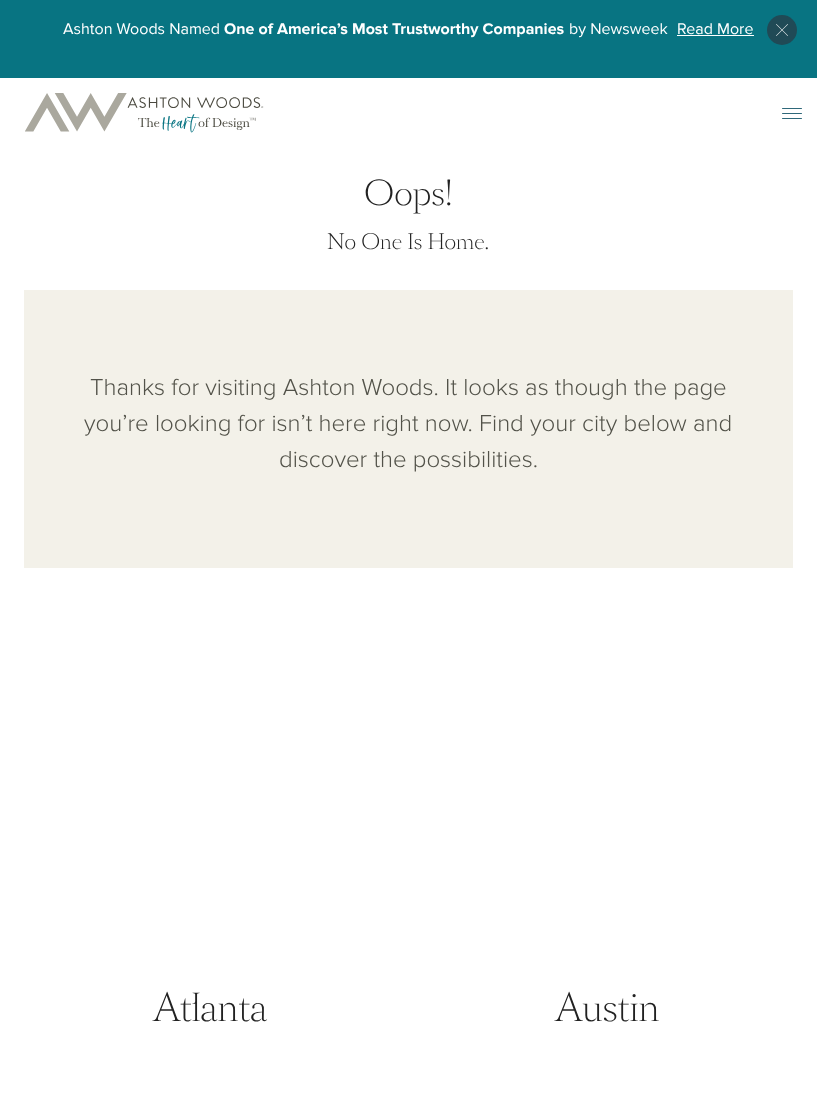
<svg xmlns="http://www.w3.org/2000/svg" width="817" height="1112" viewBox="0 0 817 1112">
  <rect width="100%" height="100%" fill="#fff"/>
  <path d="M0 0h817v78H0z" fill="#087482"/>
  <path d="M677 35h77v1H677z" fill="#fff"/>
  <circle cx="782" cy="30" r="15" fill="#204a56"/>
  <image x="776" y="24" width="12" height="12" href="img/1.png"/>
  <image x="25" y="93" width="239" height="40" href="img/2.png"/>
  <rect x="782" y="113" width="20" height="1" rx="0.5" fill="#2f687a"/>
  <rect x="782" y="108" width="20" height="1" rx="0.5" fill="#2f687a"/>
  <rect x="782" y="118" width="20" height="1" rx="0.5" fill="#2f687a"/>
  <path d="M24 290h769v278H24z" fill="#f3f1e9"/>
  <text x="63" y="34" font-family="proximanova" font-size="16" fill="#fff">Ashton Woods Named</text>
  <text x="224" y="34" font-family="proximanova" font-size="16" font-weight="bold" fill="#fff">One of America’s Most Trustworthy Companies</text>
  <g font-family="proximanova" font-size="16" fill="#fff">
    <text x="569" y="34">by Newsweek</text>
    <text x="677" y="34">Read More</text>
  </g>
  <text x="364" y="205" font-family="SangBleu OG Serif" font-size="32" font-weight="300" fill="#222">Oops!</text>
  <text x="327" y="249" font-family="SangBleu OG Serif" font-size="20" font-weight="300" fill="#222">No One Is Home.</text>
  <g font-family="proximanova" font-size="24" font-weight="300" fill="#525249">
    <text x="90" y="395">Thanks for visiting Ashton Woods. It looks as though the page</text>
    <text x="84" y="431">you’re looking for isn’t here right now. Find your city below and</text>
    <text x="279" y="467">discover the possibilities.</text>
  </g>
  <g font-family="SangBleu OG Serif" font-size="36" font-weight="300" fill="#222">
    <text x="153" y="1021">Atlanta</text>
    <text x="555" y="1021">Austin</text>
  </g>
</svg>
